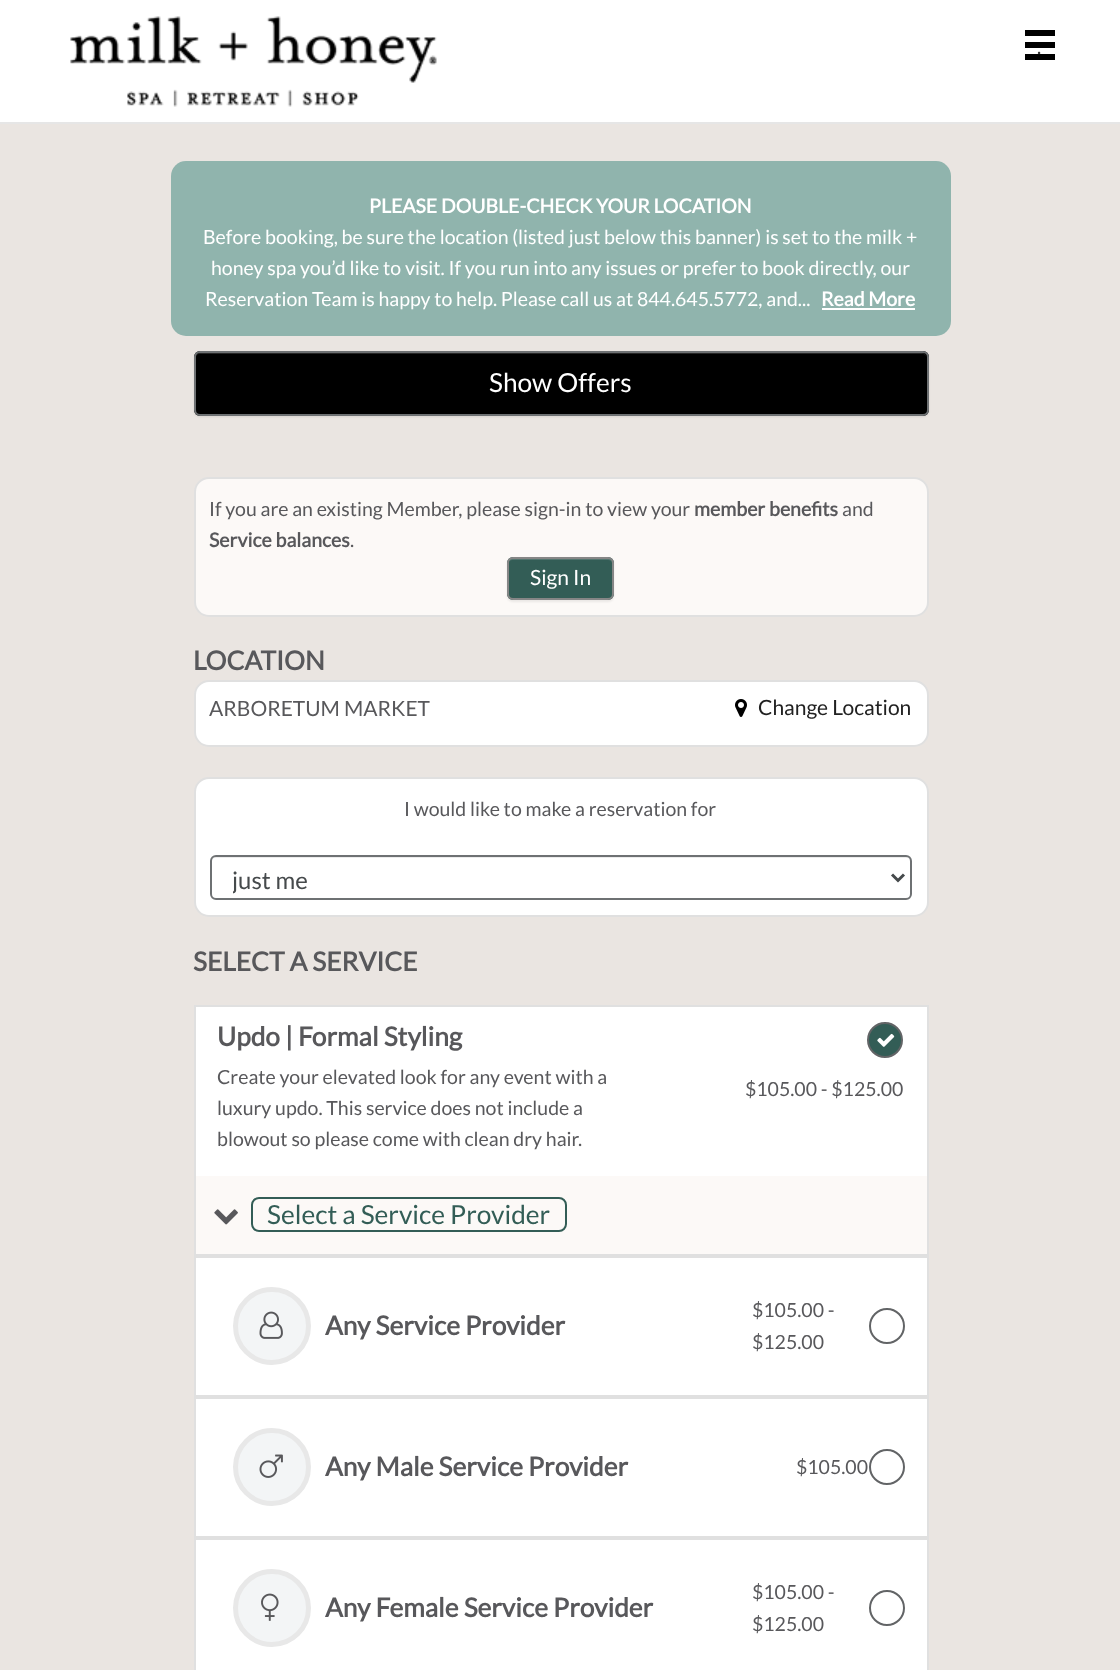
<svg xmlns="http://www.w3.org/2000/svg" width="1120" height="1670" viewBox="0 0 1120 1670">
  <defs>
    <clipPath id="clip1"><path d="M233 864h639v32H233z"/></clipPath>
  </defs>
  <rect width="100%" height="100%" fill="#eae5e1"/>
  <path d="M0 0h1120v122H0z" fill="#fff"/>
  <path d="M0 122h1120v2H0z" fill="#e6e6e6"/>
  <image x="70" y="16" width="367" height="91" href="img/1.png"/>
  <path d="M1025 30h30v6H1025z" fill="#000"/>
  <path d="M1025 42h30v6H1025z" fill="#000"/>
  <path d="M1025 54h30v6H1025z" fill="#000"/>
  <rect x="171" y="161" width="780" height="175" rx="15" fill="#90b4ad"/>
  <path d="M822 308h93v2H822z" fill="#fff"/>
  <rect x="194" y="353" width="735" height="64" rx="6" fill="#00000012" filter="blur(1px)"/>
  <rect x="194" y="351" width="735" height="65" rx="6" fill="#000"/>
  <path d="M200 354H922C925 354 927 356 927 359C927 356 925 353 922 353H200C197 353 195 356 195 359C195 356 197 354 200 354Z" fill="#262626"/>
  <rect x="195" y="352" width="733" height="63" rx="5" fill="none" stroke="#6e7173" stroke-width="2"/>
  <rect x="195" y="478" width="733" height="138" rx="14" fill="#fcf9f7" stroke="#e0e0e0" stroke-width="2"/>
  <rect x="507" y="558" width="107" height="44" rx="6" fill="#00000012" filter="blur(1px)"/>
  <rect x="507" y="557" width="107" height="43" rx="6" fill="#335d56"/>
  <path d="M512 560H608C610 560 612 561 612 563V562C612 560 610 558 608 558H513C511 558 510 559 509 561Z" fill="#52756f"/>
  <rect x="508" y="558" width="105" height="41" rx="5" fill="none" stroke="#868686" stroke-width="2"/>
  <rect x="195" y="681" width="733" height="65" rx="14" fill="#fff" stroke="#e0e0e0" stroke-width="2"/>
  <image x="735" y="699" width="12" height="18" href="img/2.png"/>
  <rect x="195" y="778" width="733" height="138" rx="14" fill="#fff" stroke="#e0e0e0" stroke-width="2"/>
  <path d="M215 858H907C909 858 910 860 910 862V898L911 896V860C911 859 910 858 909 857H216C213 857 212 859 212 862C212 860 213 858 215 858Z" fill="#ececec"/>
  <rect x="211" y="856" width="700" height="43" rx="5" fill="none" stroke="#6e7173" stroke-width="2"/>
  <path d="M892 874.5L898 880.5L904 874.5" fill="none" stroke="#464a4c" stroke-width="3"/>
  <path d="M196 1007h731v169H196z" fill="#fff"/>
  <path d="M194 1005h735v2H194z" fill="#e0e0e0"/>
  <path d="M927 1005h2v251H927z" fill="#e0e0e0"/>
  <path d="M194 1005h2v171H194z" fill="#e0e0e0"/>
  <circle cx="885" cy="1040" r="17" fill="#335d56" stroke="#626466" stroke-width="2"/>
  <image x="877" y="1033" width="18" height="14" href="img/3.png"/>
  <path d="M196 1176h731v78H196z" fill="#fcf9f7"/>
  <path d="M194 1254h735v2H194z" fill="#e0e0e0"/>
  <path d="M194 1176h2v80H194z" fill="#e0e0e0"/>
  <image x="214" y="1209" width="24" height="16" href="img/4.png"/>
  <rect x="252" y="1198" width="314" height="33" rx="7" fill="none" stroke="#335d56" stroke-width="2"/>
  <path d="M195 1257h733v139H195z" fill="#fff" stroke="#e0e0e0" stroke-width="2"/>
  <circle cx="272" cy="1326" r="36.5" fill="#f3f5f6" stroke="#e8e8e8" stroke-width="5"/>
  <image x="259" y="1311" width="24" height="28" href="img/5.png"/>
  <circle cx="887" cy="1326" r="17" fill="none" stroke="#626466" stroke-width="2"/>
  <path d="M195 1398h733v139H195z" fill="#fff" stroke="#e0e0e0" stroke-width="2"/>
  <circle cx="272" cy="1467" r="36.5" fill="#f3f5f6" stroke="#e8e8e8" stroke-width="5"/>
  <image x="259" y="1454" width="24" height="24" href="img/6.png"/>
  <circle cx="887" cy="1467" r="17" fill="none" stroke="#626466" stroke-width="2"/>
  <path d="M195 1539h733v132H195z" fill="#fff" stroke="#e0e0e0" stroke-width="2"/>
  <circle cx="272" cy="1608" r="36.5" fill="#f3f5f6" stroke="#e8e8e8" stroke-width="5"/>
  <image x="261" y="1593" width="18" height="28" href="img/7.png"/>
  <circle cx="887" cy="1608" r="17" fill="none" stroke="#626466" stroke-width="2"/>
  <text x="1037" y="54" font-family="Lato" font-size="19.5" fill="#333">.</text>
  <text x="369" y="213" font-family="Lato" font-size="19.5" font-weight="bold" fill="#fff">PLEASE DOUBLE-CHECK YOUR LOCATION</text>
  <g font-family="Lato" font-size="19.5" fill="#fff">
    <text x="203" y="244">Before booking, be sure the location (listed just below this banner) is set to the milk +</text>
    <text x="211" y="275">honey spa you’d like to visit. If you run into any issues or prefer to book directly, our</text>
    <text x="205" y="306">Reservation Team is happy to help. Please call us at 844.645.5772, and...</text>
  </g>
  <text x="821" y="306" font-family="Lato" font-size="19.5" font-weight="bold" fill="#fff">Read More</text>
  <text x="489" y="392" font-family="Lato" font-size="26.25" fill="#fff">Show Offers</text>
  <text x="209" y="516" font-family="Lato" font-size="19.5" fill="#58585b">If you are an existing Member, please sign-in to view your</text>
  <text x="694" y="516" font-family="Lato" font-size="19.5" font-weight="bold" fill="#58585b">member benefits</text>
  <text x="842" y="516" font-family="Lato" font-size="19.5" fill="#58585b">and</text>
  <text x="209" y="547" font-family="Lato" font-size="19.5" font-weight="bold" fill="#58585b">Service balances</text>
  <text x="350" y="547" font-family="Lato" font-size="19.5" fill="#58585b">.</text>
  <text x="530" y="585" font-family="Lato" font-size="21" fill="#fff">Sign In</text>
  <text x="193" y="670" font-family="Lato" font-size="26.25" font-weight="bold" fill="#58585b">LOCATION</text>
  <text x="209" y="716" font-family="Lato" font-size="21" fill="#58585b">ARBORETUM MARKET</text>
  <text x="758" y="715" font-family="Lato" font-size="21" fill="#212121">Change Location</text>
  <text x="404" y="816" font-family="Lato" font-size="19.5" fill="#58585b">I would like to make a reservation for</text>
  <g clip-path="url(#clip1)">
    <text x="232" y="889" font-family="Lato" font-size="24" fill="#464a4c">just me</text>
  </g>
  <g font-family="Lato" font-size="26.25" font-weight="bold" fill="#58585b">
    <text x="193" y="971">SELECT A SERVICE</text>
    <text x="217" y="1046">Updo | Formal Styling</text>
  </g>
  <g font-family="Lato" font-size="19.5" fill="#58585b">
    <text x="217" y="1084">Create your elevated look for any event with a</text>
    <text x="217" y="1115">luxury updo. This service does not include a</text>
    <text x="217" y="1146">blowout so please come with clean dry hair.</text>
    <text x="745" y="1096">$105.00 - $125.00</text>
  </g>
  <text x="267" y="1224" font-family="Lato" font-size="26.25" fill="#335d56">Select a Service Provider</text>
  <text x="325" y="1335" font-family="Lato" font-size="26.25" font-weight="bold" fill="#58585b">Any Service Provider</text>
  <g font-family="Lato" font-size="19.5" fill="#58585b">
    <text x="752" y="1317">$105.00 -</text>
    <text x="752" y="1349">$125.00</text>
  </g>
  <text x="325" y="1476" font-family="Lato" font-size="26.25" font-weight="bold" fill="#58585b">Any Male Service Provider</text>
  <text x="796" y="1474" font-family="Lato" font-size="19.5" fill="#58585b">$105.00</text>
  <text x="325" y="1617" font-family="Lato" font-size="26.25" font-weight="bold" fill="#58585b">Any Female Service Provider</text>
  <g font-family="Lato" font-size="19.5" fill="#58585b">
    <text x="752" y="1599">$105.00 -</text>
    <text x="752" y="1631">$125.00</text>
  </g>
</svg>
